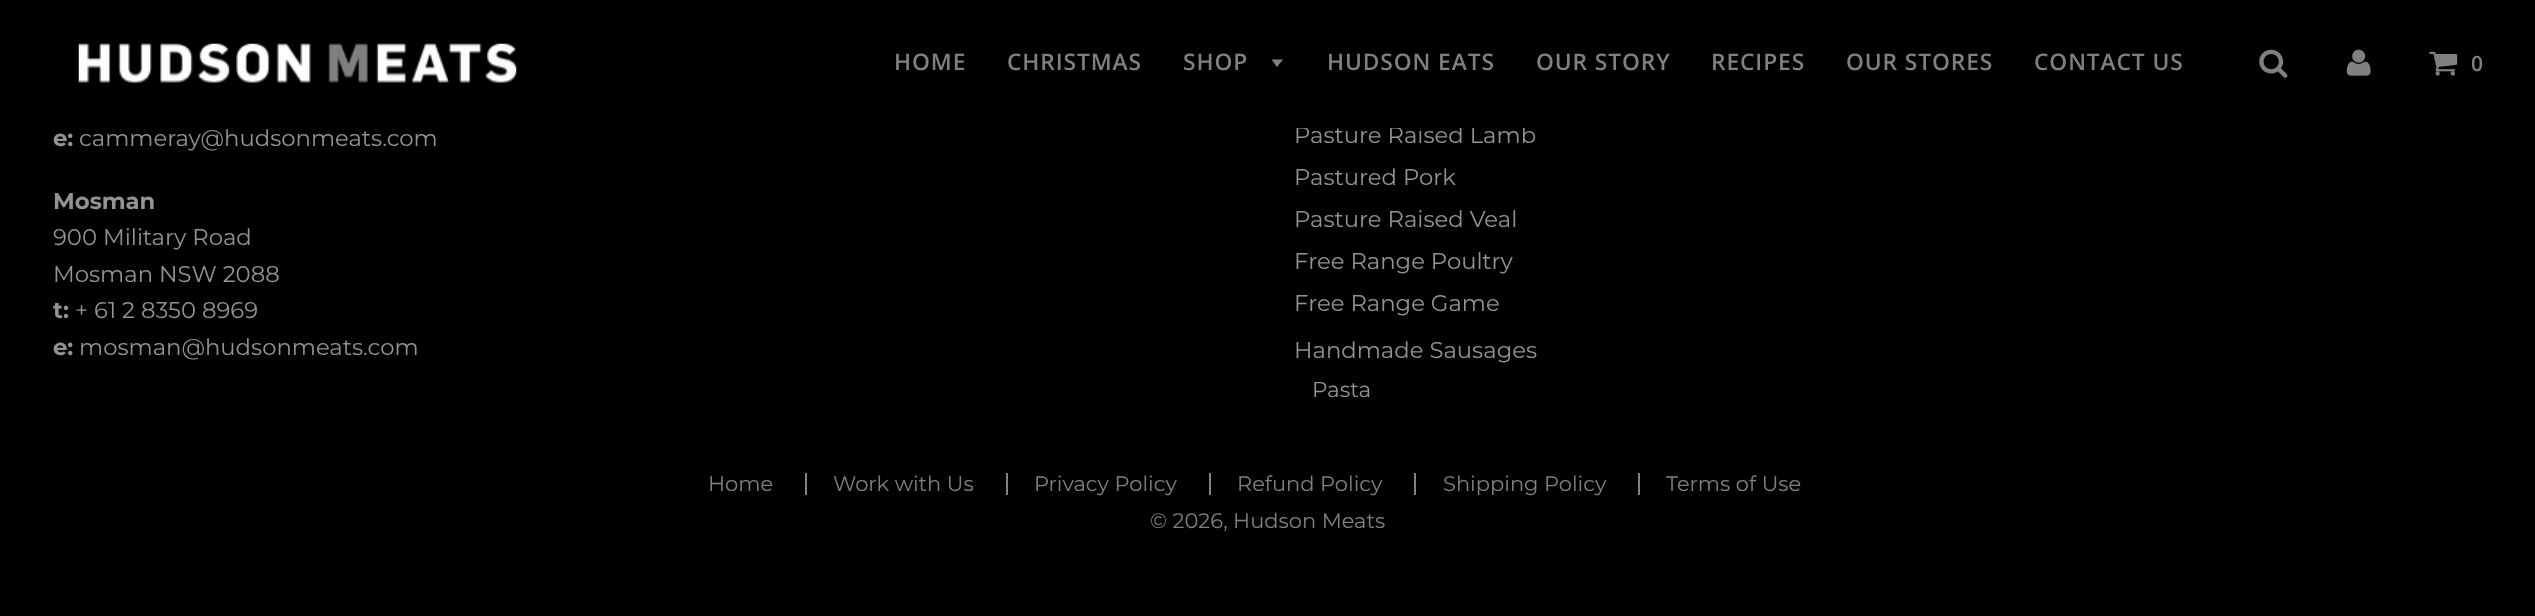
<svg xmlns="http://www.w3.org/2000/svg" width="2535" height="616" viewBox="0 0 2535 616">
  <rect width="100%" height="100%" fill="#000"/>
  <image x="78" y="43" width="439" height="40" href="img/1.png"/>
  <path d="M1271.5 59.5L1277 67L1283 59.5Z" fill="#808080"/>
  <image x="2259" y="49" width="29" height="29" href="img/2.png"/>
  <image x="2346" y="49" width="25" height="27" href="img/3.png"/>
  <image x="2429" y="51" width="29" height="25" href="img/4.png"/>
  <path d="M805 473h2v22H805z" fill="#808080"/>
  <path d="M1006 473h2v22H1006z" fill="#808080"/>
  <path d="M1209 473h2v22H1209z" fill="#808080"/>
  <path d="M1414 473h2v22H1414z" fill="#808080"/>
  <path d="M1638 473h2v22H1638z" fill="#808080"/>
  <g font-family="Open Sans" font-size="22.75" font-weight="600" letter-spacing="0.9" fill="#808080">
    <text x="894" y="70">HOME</text>
    <text x="1007" y="70">CHRISTMAS</text>
    <text x="1183" y="70">SHOP</text>
    <text x="1327" y="70">HUDSON EATS</text>
    <text x="1536" y="70">OUR STORY</text>
    <text x="1711" y="70">RECIPES</text>
    <text x="1846" y="70">OUR STORES</text>
    <text x="2034" y="70">CONTACT US</text>
  </g>
  <text x="2471" y="71" font-family="Open Sans" font-size="21" font-weight="600" fill="#808080">0</text>
  <text x="53" y="146" font-family="Montserrat" font-size="22.75" font-weight="bold" fill="#939393">e:</text>
  <text x="79" y="146" font-family="Montserrat" font-size="22.75" fill="#939393">cammeray@hudsonmeats.com</text>
  <text x="53" y="209" font-family="Montserrat" font-size="22.75" font-weight="bold" fill="#939393">Mosman</text>
  <g font-family="Montserrat" font-size="22.75" fill="#939393">
    <text x="53" y="245">900 Military Road</text>
    <text x="53" y="282">Mosman NSW 2088</text>
  </g>
  <text x="53" y="318" font-family="Montserrat" font-size="22.75" font-weight="bold" fill="#939393">t:</text>
  <text x="75" y="318" font-family="Montserrat" font-size="22.75" fill="#939393">+ 61 2 8350 8969</text>
  <text x="53" y="355" font-family="Montserrat" font-size="22.75" font-weight="bold" fill="#939393">e:</text>
  <g font-family="Montserrat" font-size="22.75" fill="#939393">
    <text x="79" y="355">mosman@hudsonmeats.com</text>
    <text x="1294" y="143">Pasture Raised Lamb</text>
  </g>
  <path d="M1296 126h229v2H1296z" fill="#000"/>
  <g font-family="Montserrat" font-size="22.75" fill="#939393">
    <text x="1294" y="185">Pastured Pork</text>
    <text x="1294" y="227">Pasture Raised Veal</text>
    <text x="1294" y="269">Free Range Poultry</text>
    <text x="1294" y="311">Free Range Game</text>
    <text x="1294" y="358">Handmade Sausages</text>
  </g>
  <text x="1312" y="397" font-family="Montserrat" font-size="21.5" fill="#939393">Pasta</text>
  <g font-family="Montserrat" font-size="21" fill="#808080">
    <text x="708" y="491">Home</text>
    <text x="833" y="491">Work with Us</text>
    <text x="1034" y="491">Privacy Policy</text>
    <text x="1237" y="491">Refund Policy</text>
    <text x="1443" y="491">Shipping Policy</text>
    <text x="1666" y="491">Terms of Use</text>
    <text x="1150" y="528">© 2026, Hudson Meats</text>
  </g>
</svg>
